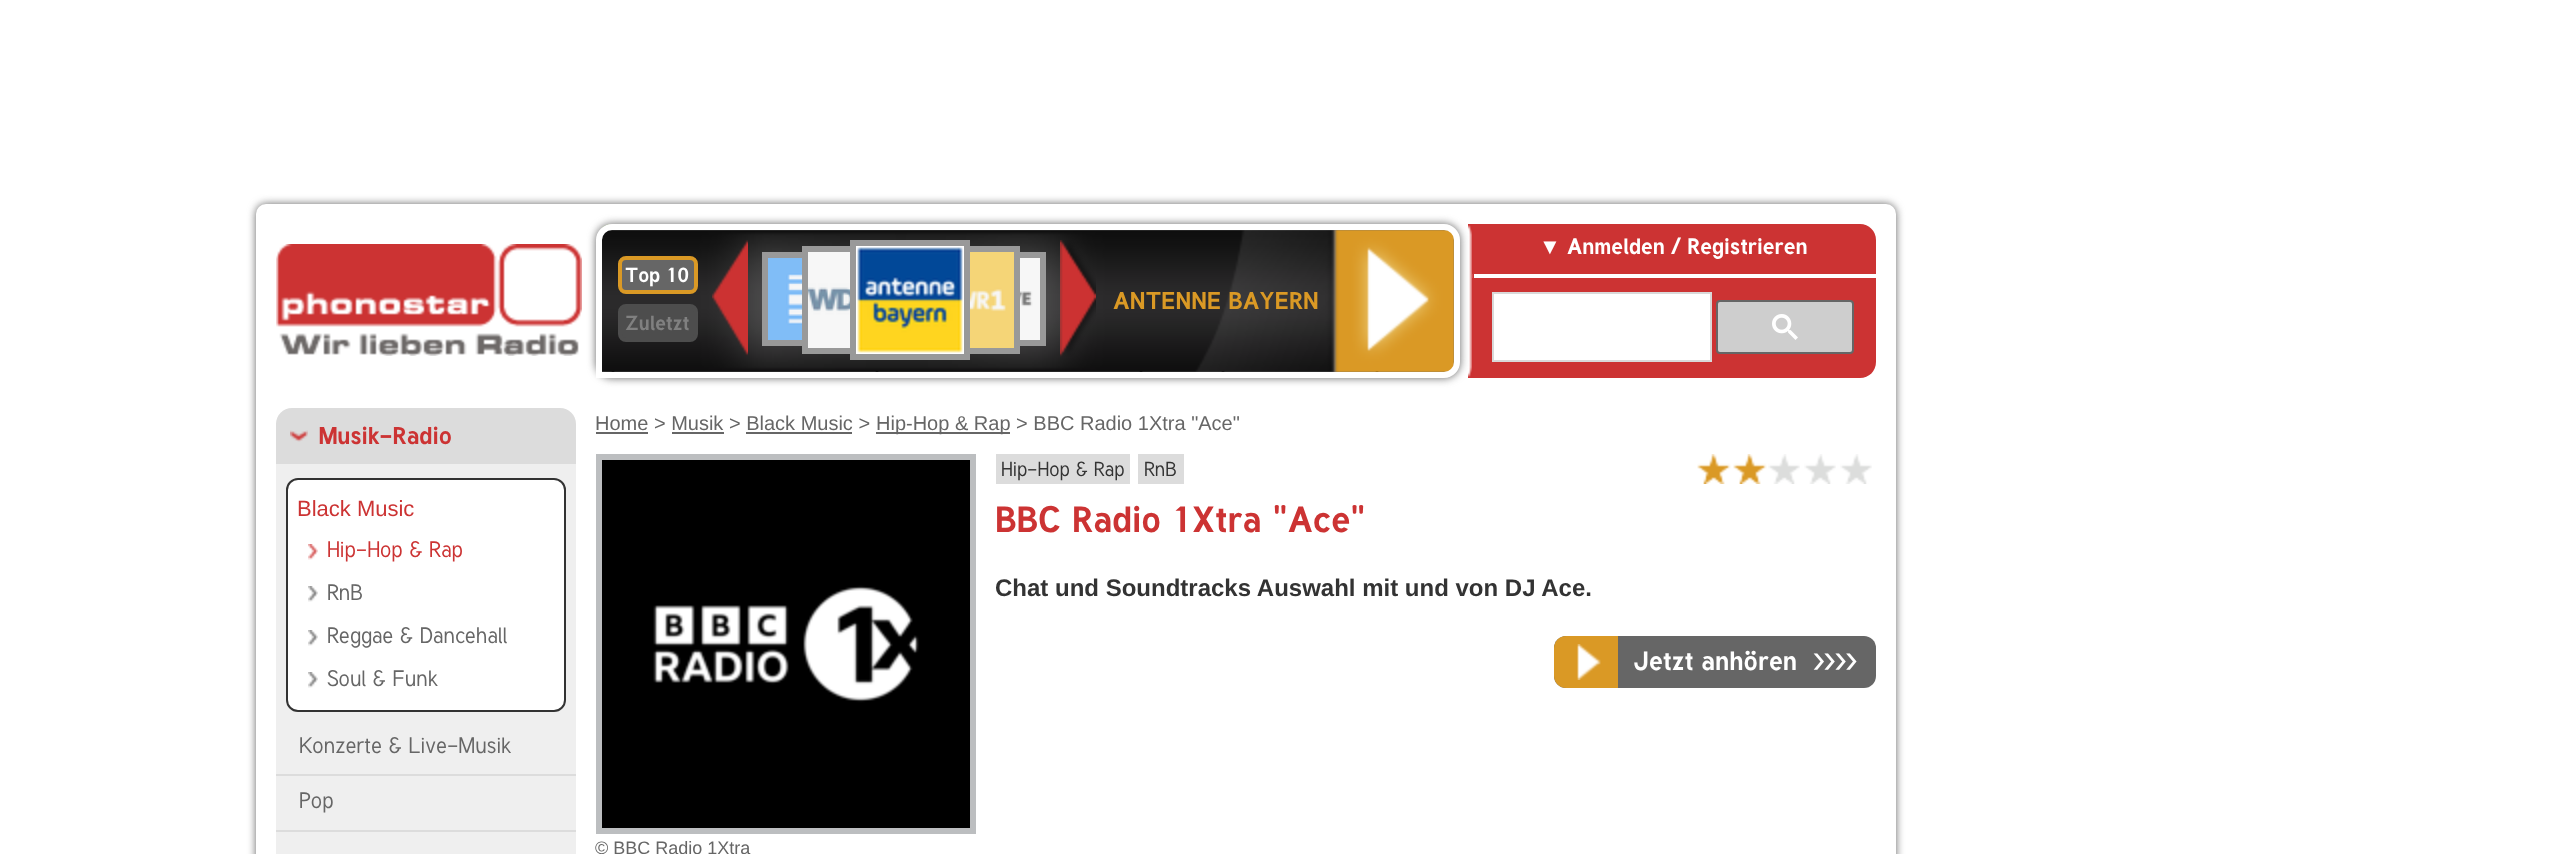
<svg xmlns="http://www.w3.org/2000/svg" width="2550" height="854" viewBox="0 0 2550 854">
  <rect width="100%" height="100%" fill="#fff"/>
  <rect x="256" y="204" width="1640" height="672" rx="10" fill="#666" filter="blur(4px)"/>
  <rect x="256" y="204" width="1640" height="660" rx="10" fill="#fff"/>
  <image x="276" y="244" width="306" height="112" href="img/1.png"/>
  <rect x="596" y="224" width="864" height="154" rx="16" fill="#666" filter="blur(4px)"/>
  <image x="602" y="224" width="852" height="148" href="img/2.png"/>
  <path d="M612 227H1444C1451 227 1457 233 1457 240V362C1457 369 1451 375 1444 375H599V240C599 233 605 227 612 227Z" fill="none" stroke="#fff" stroke-width="6"/>
  <rect x="620" y="258" width="76" height="34" rx="6" fill="#666" stroke="#da9925" stroke-width="4"/>
  <rect x="620" y="306" width="76" height="34" rx="6" fill="#4d4d4d" stroke="#4d4d4d" stroke-width="4"/>
  <image x="712" y="240" width="36" height="116" href="img/3.png"/>
  <path d="M765 255h88v88H765z" fill="none" stroke="#999" stroke-width="6"/>
  <path d="M805 249h102v102H805z" fill="none" stroke="#999" stroke-width="6"/>
  <path d="M955 255h88v88H955z" fill="none" stroke="#999" stroke-width="6"/>
  <path d="M915 249h102v102H915z" fill="none" stroke="#999" stroke-width="6"/>
  <path d="M853 243h114v114H853z" fill="none" stroke="#999" stroke-width="6"/>
  <path d="M856 246h108v108H856z" fill="#fff"/>
  <image x="857" y="247" width="106" height="106" href="img/4.png"/>
  <path d="M808 252h42v96H808z" fill="#eee"/>
  <image x="808" y="252" width="42" height="96" href="img/5.png"/>
  <path d="M970 252h44v96H970z" fill="#eee"/>
  <image x="970" y="252" width="44" height="96" href="img/6.png"/>
  <path d="M768 258h34v82H768z" fill="#eee"/>
  <image x="768" y="258" width="34" height="82" href="img/7.png"/>
  <path d="M1020 258h20v82H1020z" fill="#eee"/>
  <image x="1020" y="258" width="20" height="82" href="img/8.png"/>
  <image x="1060" y="240" width="36" height="117" href="img/9.png"/>
  <path d="M1472 224H1860C1869 224 1876 231 1876 240V362C1876 371 1869 378 1860 378H1472Z" fill="#c33"/>
  <path d="M1472 274h404v4H1472z" fill="#fff"/>
  <image x="1468" y="224" width="6" height="154" href="img/10.png"/>
  <path d="M1493 293h218v68H1493z" fill="#fff" stroke="#d9d9d9" stroke-width="2"/>
  <rect x="1717" y="301" width="136" height="52" rx="3" fill="#cecece" stroke="#666" stroke-width="2"/>
  <image x="1772" y="314" width="26" height="26" href="img/11.png"/>
  <path d="M292 408H560C569 408 576 415 576 424V854C576 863 569 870 560 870H276V424C276 415 283 408 292 408Z" fill="#dcdcdc"/>
  <image x="290" y="430" width="18" height="12" href="img/12.png"/>
  <path d="M276 464h300v390H276z" fill="#efefef"/>
  <path d="M276 774h300v2H276z" fill="#dcdcdc"/>
  <rect x="287" y="479" width="278" height="232" rx="11" fill="#fff" stroke="#333" stroke-width="2"/>
  <image x="308" y="544" width="10" height="16" href="img/13.png"/>
  <image x="308" y="586" width="10" height="16" href="img/14.png"/>
  <image x="308" y="630" width="10" height="16" href="img/14.png"/>
  <image x="308" y="672" width="10" height="16" href="img/14.png"/>
  <path d="M276 830h300v2H276z" fill="#dcdcdc"/>
  <path d="M596 432h52v2H596z" fill="#666"/>
  <path d="M876 432h134v2H876z" fill="#666"/>
  <path d="M672 432h52v2H672z" fill="#666"/>
  <path d="M746 432h106v2H746z" fill="#666"/>
  <path d="M996 454h134v30H996z" fill="#dcdcdc"/>
  <path d="M1138 454h46v30H1138z" fill="#dcdcdc"/>
  <image x="1697" y="454" width="34" height="30" href="img/15.png"/>
  <image x="1733" y="454" width="34" height="30" href="img/15.png"/>
  <image x="1768" y="454" width="32" height="30" href="img/16.png"/>
  <image x="1804" y="454" width="32" height="30" href="img/16.png"/>
  <image x="1840" y="454" width="32" height="30" href="img/16.png"/>
  <rect x="1554" y="636" width="322" height="52" rx="12" fill="#666"/>
  <path d="M1566 636H1618V688H1566C1559.5 688 1554 682.5 1554 676V648C1554 641.5 1559.5 636 1566 636Z" fill="#da9925"/>
  <image x="1577" y="644" width="24" height="36" href="img/17.png"/>
  <path d="M599 457h374v374H599z" fill="none" stroke="#bcbec0" stroke-width="6"/>
  <image x="602" y="460" width="368" height="368" href="img/18.png"/>
  <text x="625" y="282" font-family="Tuffy" font-size="20" font-weight="bold" fill="#fff">Top 10</text>
  <text x="625" y="330" font-family="Tuffy" font-size="20" font-weight="bold" fill="#808080">Zuletzt</text>
  <text x="1113" y="309" font-family="Tuffy" font-size="24" font-weight="bold" fill="#da9925">ANTENNE BAYERN</text>
  <text x="1539" y="254" font-family="Liberation Sans" font-size="22" fill="#fff">▼</text>
  <text x="1567" y="254" font-family="Tuffy" font-size="22" font-weight="bold" fill="#fff">Anmelden / Registrieren</text>
  <text x="319" y="444" font-family="Tuffy" font-size="24" font-weight="bold" fill="#c33">Musik-Radio</text>
  <text x="297" y="516" font-family="Liberation Sans" font-size="22" fill="#c33">Black Music</text>
  <text x="327" y="557" font-family="Tuffy" font-size="22" fill="#c33">Hip-Hop &amp; Rap</text>
  <g font-family="Tuffy" font-size="22" fill="#666">
    <text x="327" y="600">RnB</text>
    <text x="327" y="643">Reggae &amp; Dancehall</text>
    <text x="327" y="686">Soul &amp; Funk</text>
    <text x="299" y="753">Konzerte &amp; Live-Musik</text>
    <text x="299" y="808">Pop</text>
  </g>
  <g font-family="Liberation Sans" font-size="20" fill="#666">
    <text x="595" y="430">Home &gt; Musik &gt; Black Music &gt;</text>
    <text x="876" y="430">Hip-Hop &amp; Rap &gt; BBC Radio 1Xtra "Ace"</text>
  </g>
  <g font-family="Tuffy" font-size="20" fill="#333">
    <text x="1001" y="476">Hip-Hop &amp; Rap</text>
    <text x="1144" y="476">RnB</text>
  </g>
  <text x="995" y="532" font-family="Tuffy" font-size="36" font-weight="bold" fill="#c33">BBC Radio 1Xtra "Ace"</text>
  <text x="995" y="596" font-family="Liberation Sans" font-size="24" font-weight="bold" fill="#333">Chat und Soundtracks Auswahl mit und von DJ Ace.</text>
  <text x="1633" y="670" font-family="Tuffy" font-size="26" font-weight="bold" fill="#fff">Jetzt anhören</text>
  <text x="1813" y="670" font-family="'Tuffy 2'" font-size="26" font-weight="bold" fill="#fff">››››</text>
  <text x="595" y="854" font-family="Liberation Sans" font-size="18" fill="#666">© BBC Radio 1Xtra</text>
</svg>
